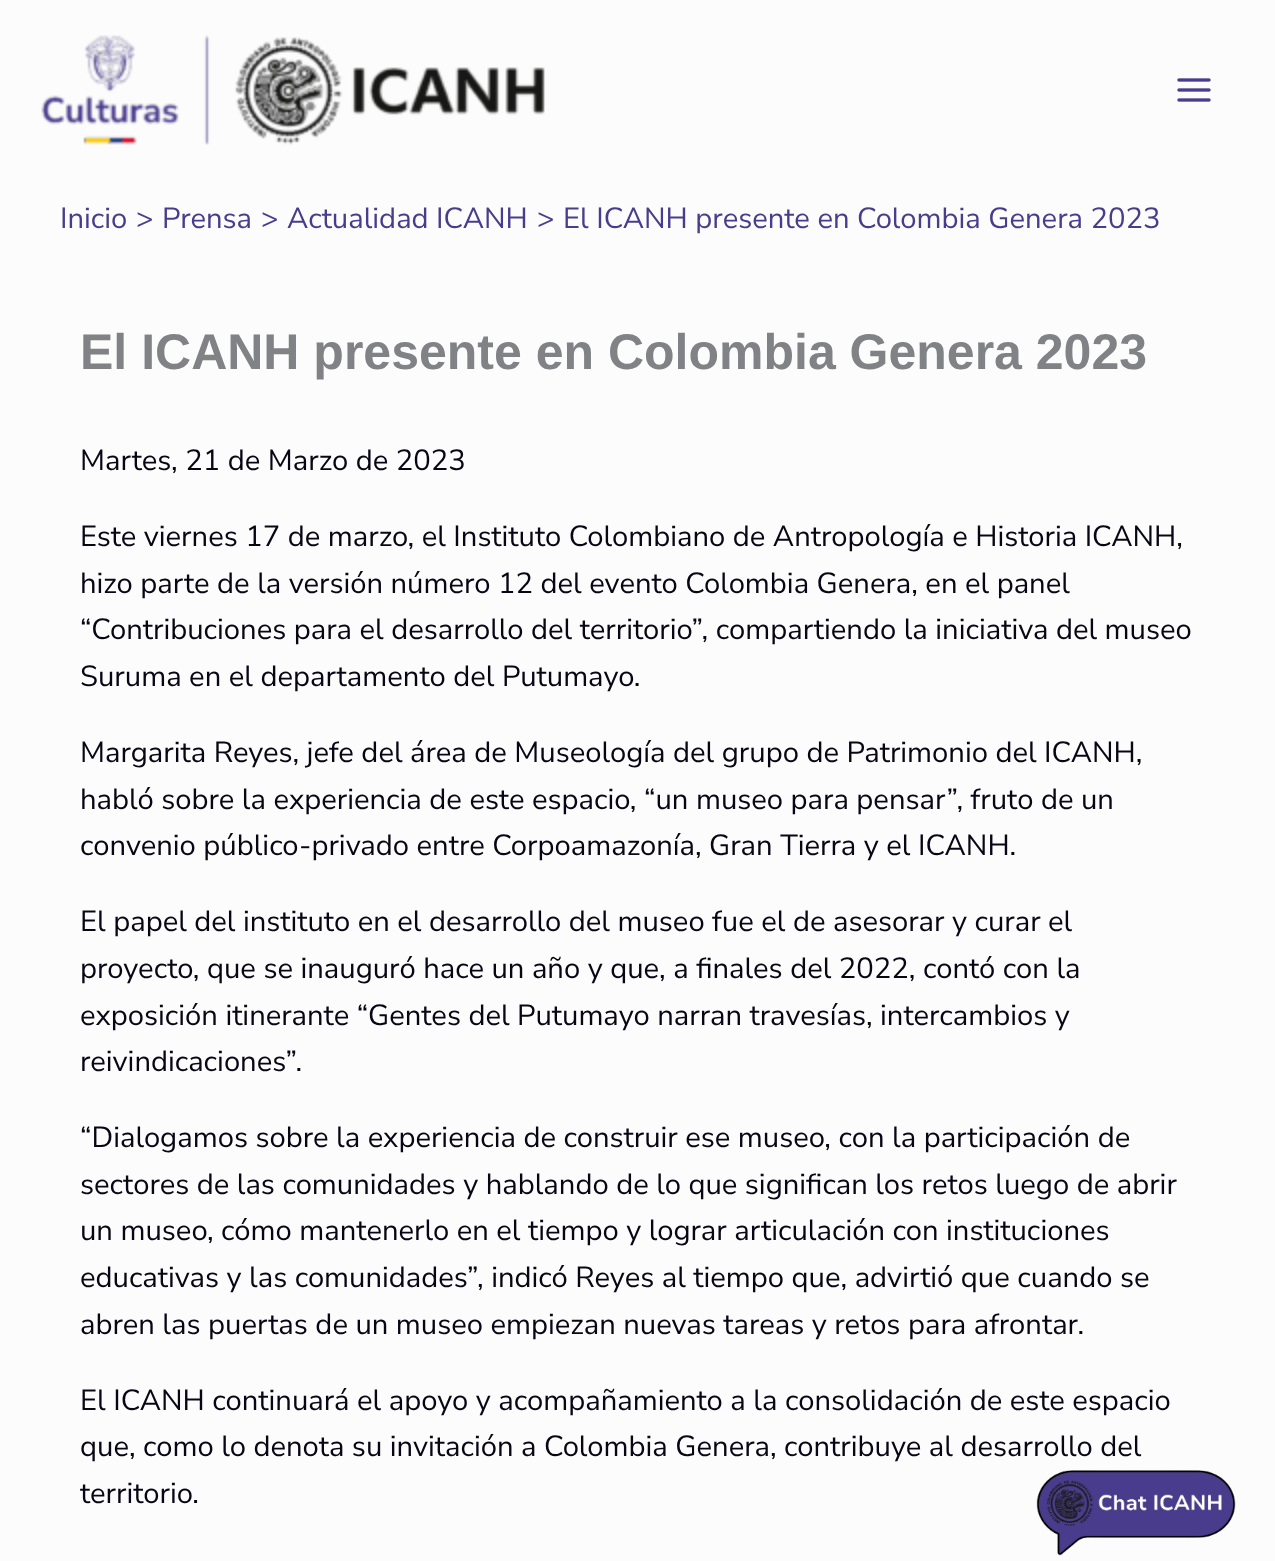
<svg xmlns="http://www.w3.org/2000/svg" width="1275" height="1561" viewBox="0 0 1275 1561">
  <rect width="100%" height="100%" fill="#fcfcfc"/>
  <image x="41" y="35" width="504" height="110" href="img/1.png"/>
  <image x="1177" y="78" width="34" height="24" href="img/2.png"/>
  <image x="1036" y="1470" width="200" height="86" href="img/3.png"/>
  <g font-family="Nunito Sans" font-size="29.2" font-weight="200" fill="#4a3c8c">
    <text x="60" y="228">Inicio</text>
    <text x="136" y="228">&gt;</text>
    <text x="162" y="228">Prensa</text>
    <text x="261" y="228">&gt;</text>
    <text x="287" y="228">Actualidad ICANH</text>
    <text x="537" y="228">&gt;</text>
    <text x="563" y="228">El ICANH presente en Colombia Genera 2023</text>
  </g>
  <text x="80" y="369" font-family="Liberation Sans" font-size="50" font-weight="bold" fill="#808285">El ICANH presente en Colombia Genera 2023</text>
  <g font-family="Nunito Sans" font-size="29.2" font-weight="200" fill="#070614">
    <text x="80" y="470">Martes, 21 de Marzo de 2023</text>
    <text x="80" y="546">Este viernes 17 de marzo, el Instituto Colombiano de Antropología e Historia ICANH,</text>
    <text x="80" y="593">hizo parte de la versión número 12 del evento Colombia Genera, en el panel</text>
    <text x="80" y="639">“Contribuciones para el desarrollo del territorio”, compartiendo la iniciativa del museo</text>
    <text x="80" y="686">Suruma en el departamento del Putumayo.</text>
    <text x="80" y="762">Margarita Reyes, jefe del área de Museología del grupo de Patrimonio del ICANH,</text>
    <text x="80" y="809">habló sobre la experiencia de este espacio, “un museo para pensar”, fruto de un</text>
    <text x="80" y="855">convenio público-privado entre Corpoamazonía, Gran Tierra y el ICANH.</text>
    <text x="80" y="931">El papel del instituto en el desarrollo del museo fue el de asesorar y curar el</text>
    <text x="80" y="978">proyecto, que se inauguró hace un año y que, a finales del 2022, contó con la</text>
    <text x="80" y="1025">exposición itinerante “Gentes del Putumayo narran travesías, intercambios y</text>
    <text x="80" y="1071">reivindicaciones”.</text>
    <text x="80" y="1147">“Dialogamos sobre la experiencia de construir ese museo, con la participación de</text>
    <text x="80" y="1194">sectores de las comunidades y hablando de lo que significan los retos luego de abrir</text>
    <text x="80" y="1240">un museo, cómo mantenerlo en el tiempo y lograr articulación con instituciones</text>
    <text x="80" y="1287">educativas y las comunidades”, indicó Reyes al tiempo que, advirtió que cuando se</text>
    <text x="80" y="1334">abren las puertas de un museo empiezan nuevas tareas y retos para afrontar.</text>
    <text x="80" y="1410">El ICANH continuará el apoyo y acompañamiento a la consolidación de este espacio</text>
    <text x="80" y="1456">que, como lo denota su invitación a Colombia Genera, contribuye al desarrollo del</text>
    <text x="80" y="1503">territorio.</text>
  </g>
</svg>
